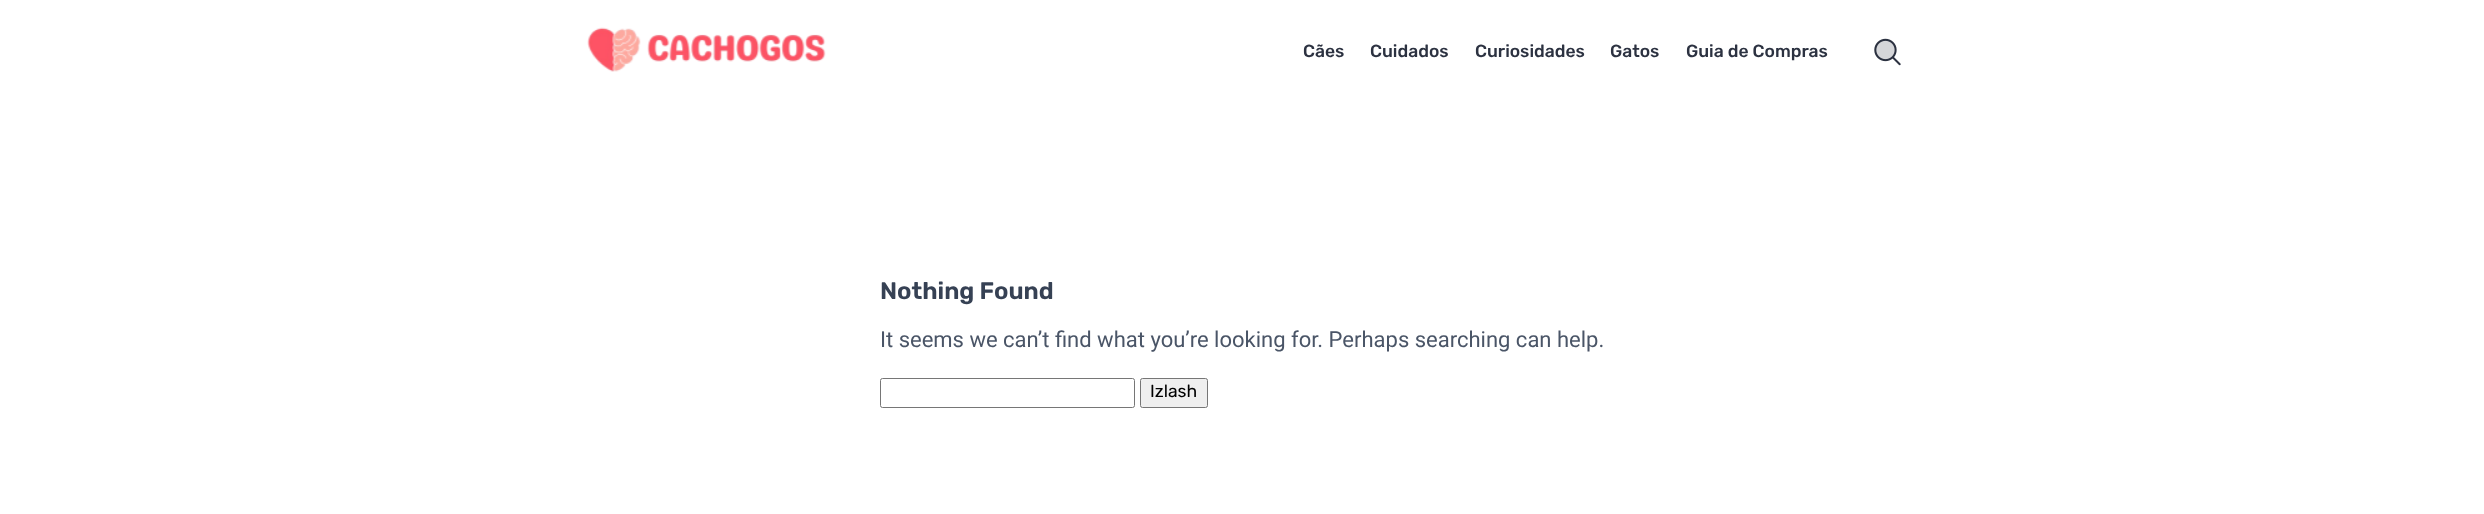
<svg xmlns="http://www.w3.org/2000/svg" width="2484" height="514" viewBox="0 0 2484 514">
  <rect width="100%" height="100%" fill="#fff"/>
  <image x="587" y="27" width="239" height="45" href="img/1.png"/>
  <image x="1874" y="38" width="27" height="28" href="img/2.png"/>
  <path d="M1895.5 50C1895.5 63.5 1875.5 63.5 1875.5 50C1875.5 36.5 1895.5 36.5 1895.5 50Z" fill="#2c324133"/>
  <rect x="880.5" y="378.5" width="254" height="29" rx="2" fill="none" stroke="#767676"/>
  <rect x="1140.5" y="378.5" width="67" height="29" rx="2" fill="#efefef" stroke="#767676"/>
  <g font-family="Rubik" font-size="17.5" font-weight="500" fill="#2c3241">
    <text x="1303" y="57">Cães</text>
    <text x="1370" y="57">Cuidados</text>
    <text x="1475" y="57">Curiosidades</text>
    <text x="1610" y="57">Gatos</text>
    <text x="1686" y="57">Guia de Compras</text>
  </g>
  <text x="880" y="299" font-family="Rubik" font-size="24" font-weight="600" fill="#364154">Nothing Found</text>
  <text x="880" y="347" font-family="Roboto" font-size="22" fill="#4a5567">It seems we can’t find what you’re looking for. Perhaps searching can help.</text>
  <text x="1150" y="397" font-family="Rubik" font-size="17.5" fill="#000">Izlash</text>
</svg>
